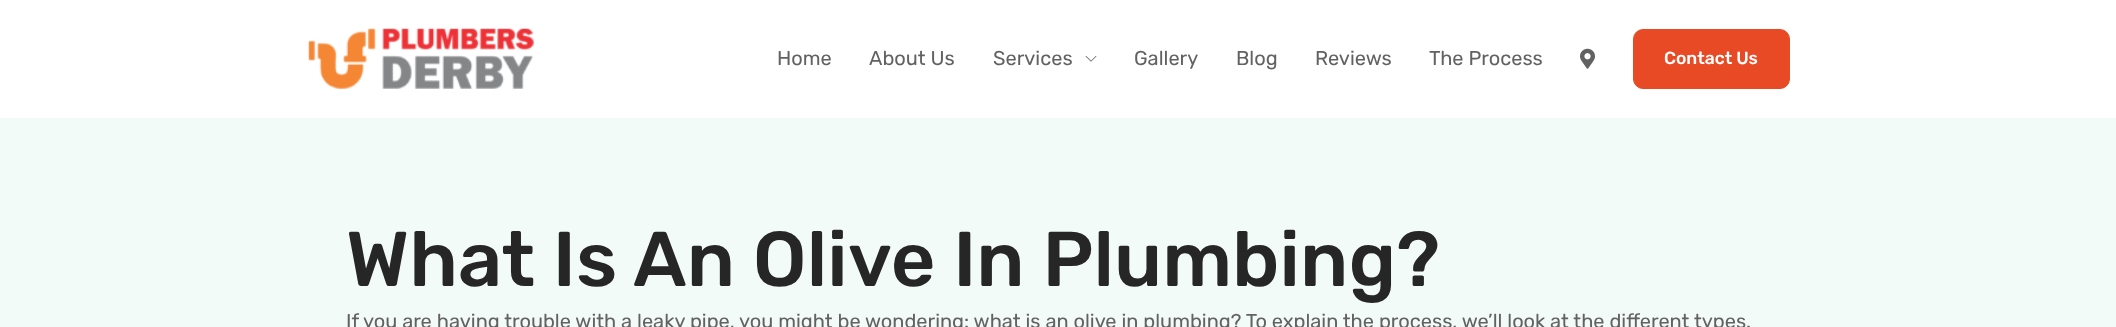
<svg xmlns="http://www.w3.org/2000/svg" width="2116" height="327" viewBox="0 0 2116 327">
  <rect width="100%" height="100%" fill="#fff"/>
  <image x="308" y="28" width="226" height="61" href="img/1.png"/>
  <image x="1085" y="55" width="12" height="7" href="img/2.png"/>
  <image x="1580" y="48" width="15" height="21" href="img/3.png"/>
  <rect x="1633.5" y="29.5" width="156" height="59" rx="9.5" fill="#e94a26" stroke="#e94a26"/>
  <path d="M0 118h2116v209H0z" fill="#f2fbf8"/>
  <g font-family="Rubik" font-size="20" fill="#626262">
    <text x="777" y="65">Home</text>
    <text x="869" y="65">About Us</text>
    <text x="993" y="65">Services</text>
    <text x="1134" y="65">Gallery</text>
    <text x="1236" y="65">Blog</text>
    <text x="1315" y="65">Reviews</text>
    <text x="1429" y="65">The Process</text>
  </g>
  <text x="1664" y="64" font-family="Rubik" font-size="17.5" font-weight="500" fill="#fff">Contact Us</text>
  <text x="346" y="286" font-family="Rubik" font-size="77.5" font-weight="500" fill="#262626">What Is An Olive In Plumbing?</text>
  <text x="346" y="328" font-family="Rubik" font-size="20" fill="#626262">If you are having trouble with a leaky pipe, you might be wondering: what is an olive in plumbing? To explain the process, we’ll look at the different types.</text>
</svg>
